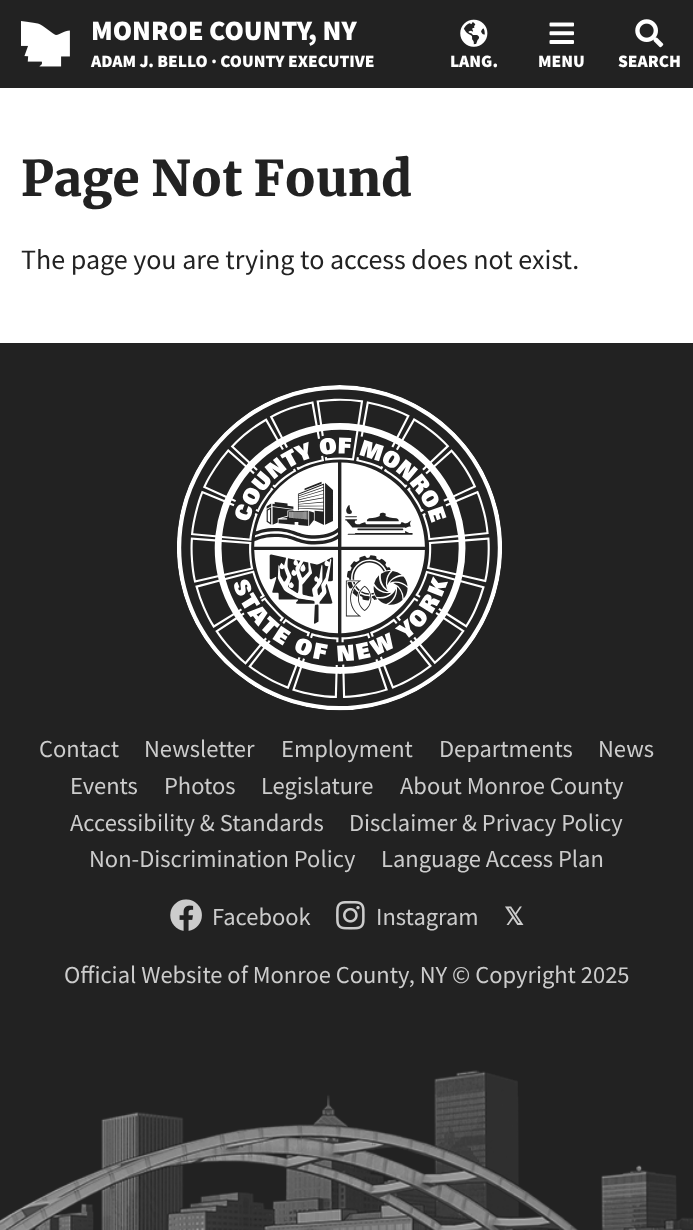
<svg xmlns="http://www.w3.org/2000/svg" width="693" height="1230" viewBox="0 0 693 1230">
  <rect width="100%" height="100%" fill="#fff"/>
  <path d="M0 0h693v88H0z" fill="#222"/>
  <image x="21" y="21" width="49" height="46" href="img/1.png"/>
  <image x="460" y="19" width="28" height="28" href="img/2.png"/>
  <image x="549" y="22" width="25" height="22" href="img/3.png"/>
  <image x="635" y="19" width="29" height="29" href="img/4.png"/>
  <path d="M0 343h693v887H0z" fill="#222"/>
  <image x="0" y="1070" width="693" height="160" href="img/5.png"/>
  <image x="177" y="385" width="325" height="326" href="img/6.png"/>
  <image x="170" y="899" width="32" height="32" href="img/7.png"/>
  <image x="336" y="900" width="29" height="30" href="img/8.png"/>
  <g font-family="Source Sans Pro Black" font-size="28" font-weight="900" fill="#fff">
    <text x="91" y="40">MONROE COUNTY</text>
    <text x="308" y="40">, NY</text>
  </g>
  <g font-family="Source Sans Pro Black" font-size="17.5" font-weight="900" fill="#fff">
    <text x="91" y="67">ADAM J. BELLO · COUNTY EXECUTIVE</text>
    <text x="450" y="67">LANG.</text>
    <text x="538" y="67">MENU</text>
    <text x="618" y="67">SEARCH</text>
  </g>
  <text x="21" y="196" font-family="Merriweather" font-size="49" font-weight="900" fill="#222">Page Not Found</text>
  <text x="21" y="269" font-family="Source Sans Pro" font-size="28" fill="#222">The page you are trying to access does not exist.</text>
  <g font-family="Source Sans Pro" font-size="24.5" fill="#ccc">
    <text x="39" y="757">Contact</text>
    <text x="144" y="757">Newsletter</text>
    <text x="281" y="757">Employment</text>
    <text x="439" y="757">Departments</text>
    <text x="598" y="757">News</text>
    <text x="70" y="794">Events</text>
    <text x="164" y="794">Photos</text>
    <text x="261" y="794">Legislature</text>
    <text x="400" y="794">About Monroe County</text>
    <text x="70" y="831">Accessibility &amp; Standards</text>
    <text x="349" y="831">Disclaimer &amp; Privacy Policy</text>
    <text x="89" y="867">Non-Discrimination Policy</text>
    <text x="381" y="867">Language Access Plan</text>
    <text x="212" y="925">Facebook</text>
    <text x="376" y="925">Instagram</text>
  </g>
  <text x="504" y="925" font-family="DejaVu Sans" font-size="24.5" font-weight="bold" fill="#ccc">𝕏</text>
  <text x="64" y="983" font-family="Source Sans Pro" font-size="24.5" fill="#ccc">Official Website of Monroe County, NY © Copyright 2025</text>
</svg>
